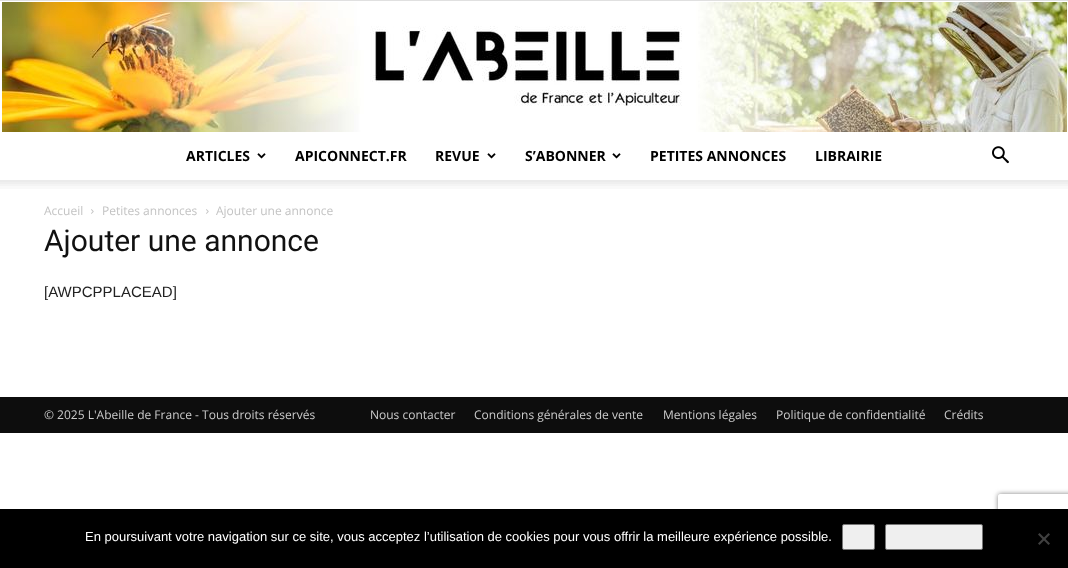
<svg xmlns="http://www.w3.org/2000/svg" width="1068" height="568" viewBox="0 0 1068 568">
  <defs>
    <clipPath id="clip1"><path d="M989 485H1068V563H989ZM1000 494H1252C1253 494 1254 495 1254 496V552C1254 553 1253 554 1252 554H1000C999 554 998 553 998 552V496C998 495 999 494 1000 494Z" clip-rule="evenodd"/></clipPath>
  </defs>
  <rect width="100%" height="100%" fill="#fff"/>
  <path d="M0 0h1068v1H0z" fill="#e0e0e0"/>
  <image x="2" y="2" width="1065" height="130" href="img/1.png"/>
  <image x="257" y="153" width="9" height="6" href="img/2.png"/>
  <image x="487" y="153" width="9" height="6" href="img/2.png"/>
  <image x="612" y="153" width="9" height="6" href="img/2.png"/>
  <image x="992" y="146" width="17" height="18" href="img/3.png"/>
  <image x="0" y="180" width="1068" height="9" href="img/4.png"/>
  <image x="91" y="209" width="3" height="5" href="img/5.png"/>
  <image x="206" y="209" width="3" height="5" href="img/5.png"/>
  <path d="M0 397h1068v36H0z" fill="#0d0d0d"/>
  <g clip-path="url(#clip1)">
    <rect x="998" y="494" width="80" height="60" rx="2" fill="#808080" filter="blur(2.5px)"/>
  </g>
  <path d="M0 509h1068v59H0z" fill="#000"/>
  <rect x="842.5" y="524.5" width="32" height="25" rx="1.5" fill="#efefef" stroke="#767676"/>
  <rect x="885.5" y="524.5" width="97" height="25" rx="1.5" fill="#efefef" stroke="#767676"/>
  <path d="M1048.5 533L1050 534.5L1039.5 545L1038 543.5Z" fill="#404040"/>
  <path d="M1038 534.5L1039.5 533L1050 543.5L1048.5 545Z" fill="#404040"/>
  <g font-family="Open Sans" font-size="14" font-weight="bold" fill="#000">
    <text x="186" y="161">ARTICLES</text>
    <text x="295" y="161">APICONNECT.FR</text>
    <text x="435" y="161">REVUE</text>
    <text x="525" y="161">S’ABONNER</text>
    <text x="650" y="161">PETITES ANNONCES</text>
    <text x="815" y="161">LIBRAIRIE</text>
  </g>
  <g font-family="Open Sans" font-size="12" fill="#c3c3c3">
    <text x="44" y="215">Accueil</text>
    <text x="102" y="215">Petites annonces</text>
    <text x="216" y="215">Ajouter une annonce</text>
  </g>
  <text x="44" y="251" font-family="Roboto" font-size="30" fill="#111">Ajouter une annonce</text>
  <text x="44" y="297" font-family="Liberation Sans" font-size="15" fill="#222">[AWPCPPLACEAD]</text>
  <g font-family="Open Sans" font-size="12" fill="#ccc">
    <text x="44" y="419">© 2025 L'Abeille de France - Tous droits réservés</text>
    <text x="370" y="419">Nous contacter</text>
    <text x="474" y="419">Conditions générales de vente</text>
    <text x="663" y="419">Mentions légales</text>
    <text x="776" y="419">Politique de confidentialité</text>
    <text x="944" y="419">Crédits</text>
  </g>
  <text x="85" y="541" font-family="Liberation Sans" font-size="13" fill="#fff">En poursuivant votre navigation sur ce site, vous acceptez l’utilisation de cookies pour vous offrir la meilleure expérience possible.</text>
</svg>
